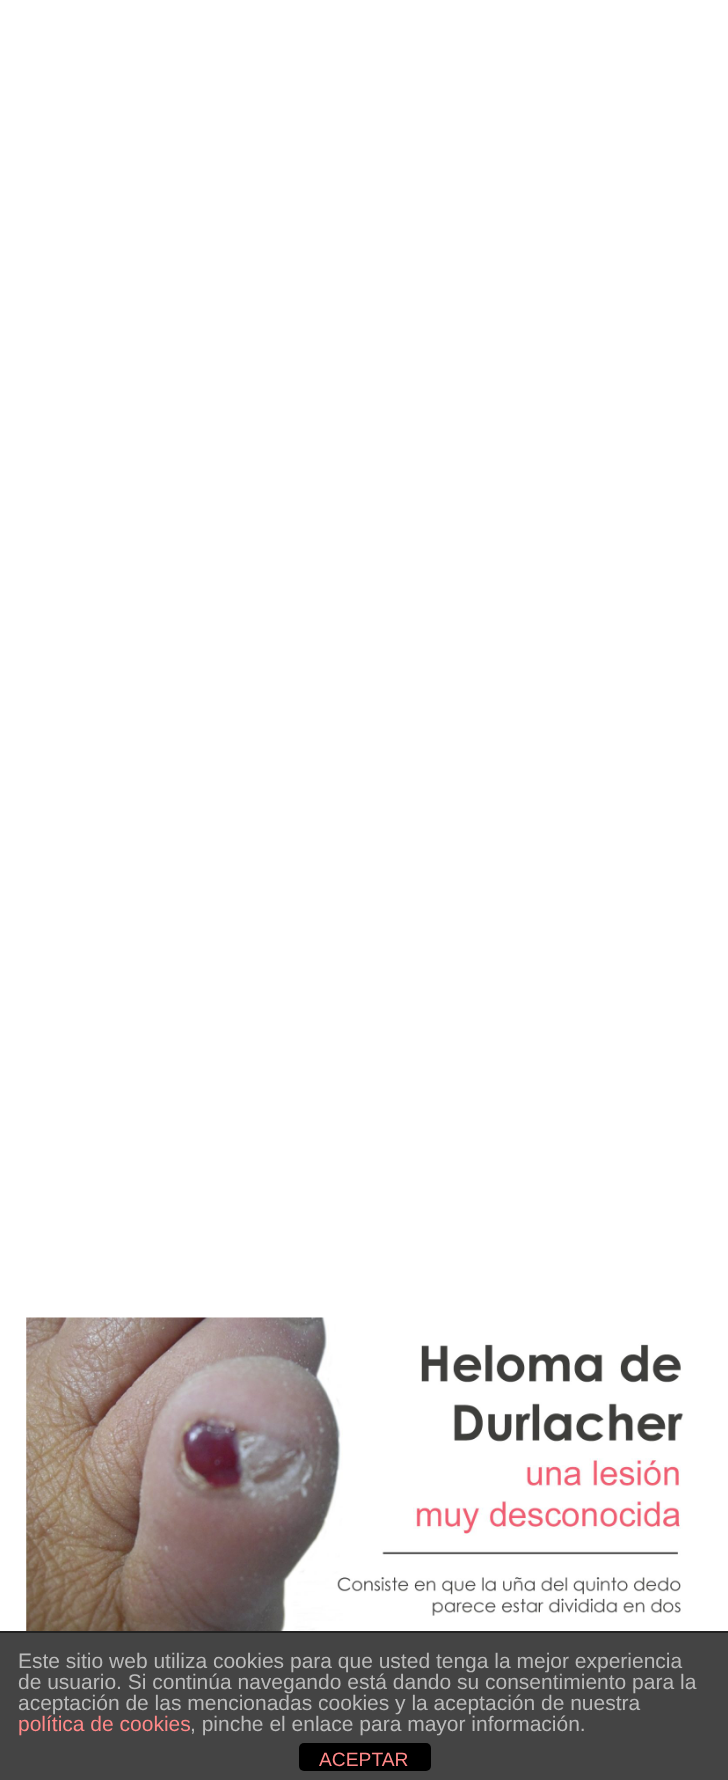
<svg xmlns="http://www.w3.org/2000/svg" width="728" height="1780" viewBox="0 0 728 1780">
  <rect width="100%" height="100%" fill="#fff"/>
  <image x="26" y="1317" width="658" height="314" href="img/1.png"/>
  <path d="M0 1633h728v147H0z" fill="#444"/>
  <path d="M0 1631h728v2H0z" fill="#222"/>
  <rect x="299" y="1743" width="132" height="28" rx="5" fill="#000"/>
  <g font-family="Liberation Sans" font-size="21" fill="#bbb">
    <text x="18" y="1668">Este sitio web utiliza cookies para que usted tenga la mejor experiencia</text>
    <text x="18" y="1689">de usuario. Si continúa navegando está dando su consentimiento para la</text>
    <text x="18" y="1710">aceptación de las mencionadas cookies y la aceptación de nuestra</text>
  </g>
  <text x="18" y="1731" font-family="Liberation Sans" font-size="21" fill="#f88">política de cookies</text>
  <text x="190" y="1731" font-family="Liberation Sans" font-size="21" fill="#bbb">, pinche el enlace para mayor información.</text>
  <text x="319" y="1766" font-family="Liberation Sans" font-size="19.25" fill="#f88">ACEPTAR</text>
</svg>
